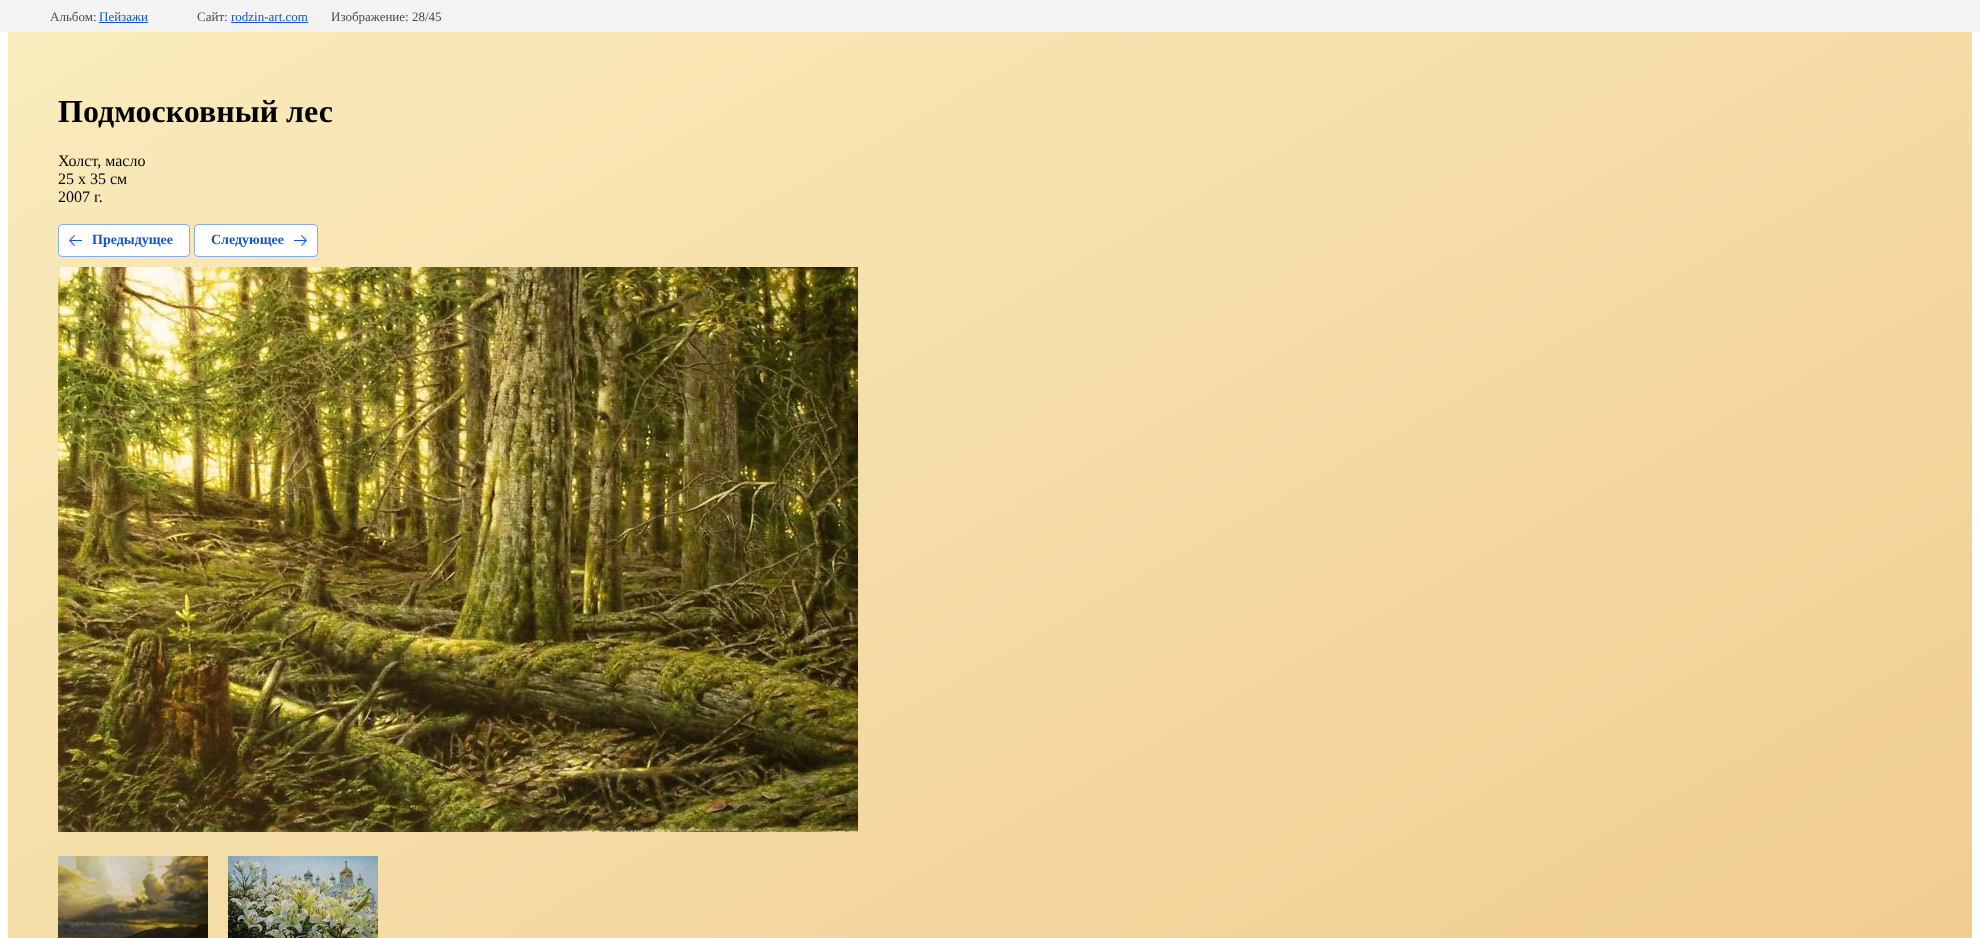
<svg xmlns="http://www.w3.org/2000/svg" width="1980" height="938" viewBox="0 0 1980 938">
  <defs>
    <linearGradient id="g1" gradientUnits="userSpaceOnUse" x1="518" y1="-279" x2="1462" y2="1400"><stop offset="0" stop-color="#faecbc"/><stop offset="1" stop-color="#f0ca8e"/></linearGradient>
  </defs>
  <rect width="100%" height="100%" fill="#fff"/>
  <path d="M8 32h1964v906H8z" fill="url(#g1)"/>
  <path d="M0 0h1980v32H0z" fill="#f3f3f3"/>
  <path d="M99 22h49v1H99z" fill="#15c"/>
  <path d="M231 22h77v1H231z" fill="#15c"/>
  <rect x="58" y="224" width="132" height="33" rx="4" fill="#fff"/>
  <rect x="58.5" y="224.5" width="131" height="32" rx="3.5" fill="none" stroke="#1155cc80"/>
  <image x="69" y="235" width="13" height="11" href="img/1.png"/>
  <rect x="194" y="224" width="124" height="33" rx="4" fill="#fff"/>
  <rect x="194.5" y="224.5" width="123" height="32" rx="3.5" fill="none" stroke="#1155cc80"/>
  <image x="294" y="235" width="13" height="11" href="img/2.png"/>
  <image x="58" y="267" width="800" height="565" href="img/3.png"/>
  <image x="58" y="856" width="150" height="82" href="img/4.png"/>
  <image x="228" y="856" width="150" height="82" href="img/5.png"/>
  <text x="50" y="21" font-family="Liberation Serif" font-size="13" fill="#484848">Альбом:</text>
  <text x="99" y="21" font-family="Liberation Serif" font-size="13" fill="#15c">Пейзажи</text>
  <text x="197" y="21" font-family="Liberation Serif" font-size="13" fill="#484848">Сайт:</text>
  <text x="231" y="21" font-family="Liberation Serif" font-size="13" fill="#15c">rodzin-art.com</text>
  <text x="331" y="21" font-family="Liberation Serif" font-size="13" fill="#484848">Изображение: 28/45</text>
  <text x="58" y="122" font-family="Liberation Serif" font-size="32" font-weight="bold" fill="#000">Подмосковный лес</text>
  <g font-family="Liberation Serif" font-size="16" fill="#000">
    <text x="58" y="166">Холст, масло</text>
    <text x="58" y="184">25 х 35 см</text>
    <text x="58" y="202">2007 г.</text>
  </g>
  <g font-family="Liberation Serif" font-size="14" font-weight="bold" fill="#15c">
    <text x="92" y="244">Предыдущее</text>
    <text x="211" y="244">Следующее</text>
  </g>
</svg>
